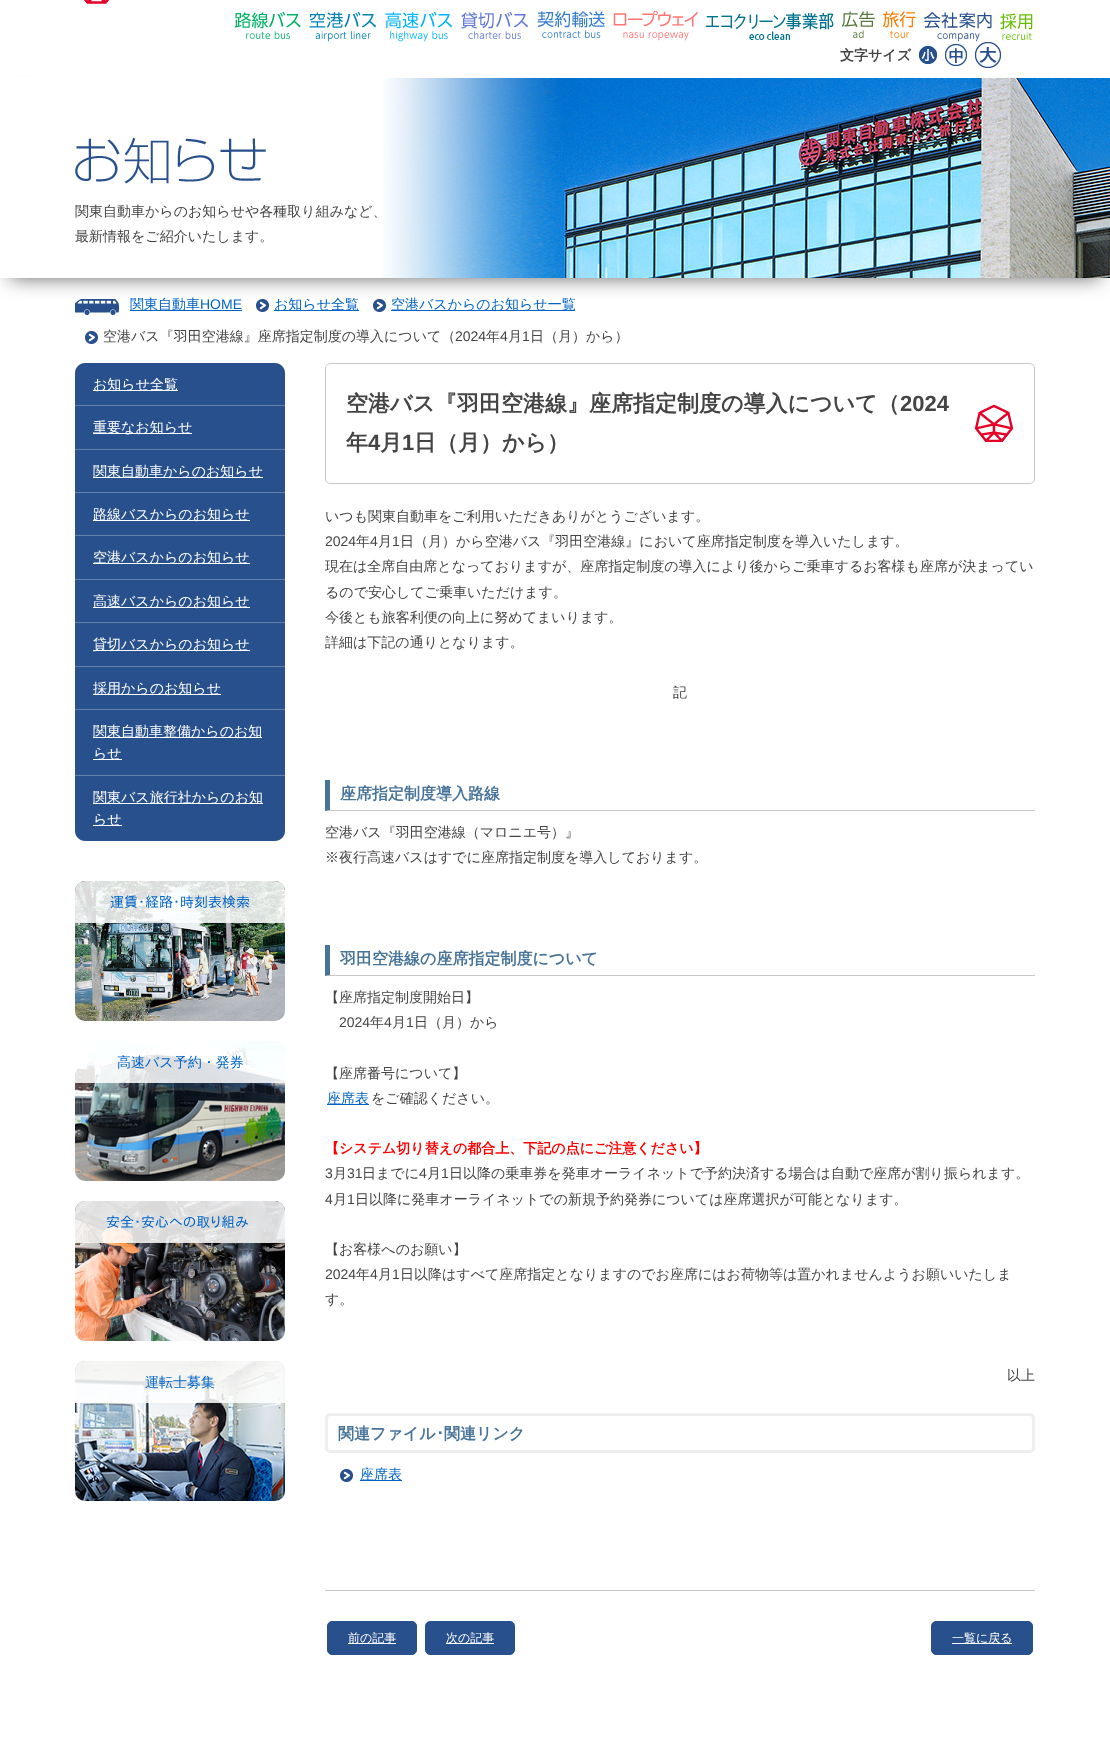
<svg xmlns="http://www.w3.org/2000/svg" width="1110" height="1743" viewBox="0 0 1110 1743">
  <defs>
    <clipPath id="clip1"><path d="M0 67H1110V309H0ZM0 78H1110V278H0Z" clip-rule="evenodd"/></clipPath>
  </defs>
  <rect width="100%" height="100%" fill="#fff"/>
  <image x="84" y="0" width="25" height="4" href="img/1.png"/>
  <image x="235" y="11" width="66" height="28" href="img/2.png"/>
  <image x="309" y="11" width="68" height="31" href="img/3.png"/>
  <image x="385" y="11" width="68" height="31" href="img/4.png"/>
  <image x="461" y="11" width="68" height="28" href="img/5.png"/>
  <image x="537" y="11" width="68" height="27" href="img/6.png"/>
  <image x="613" y="11" width="85" height="30" href="img/7.png"/>
  <image x="705" y="12" width="129" height="28" href="img/8.png"/>
  <image x="842" y="11" width="33" height="27" href="img/9.png"/>
  <image x="883" y="11" width="33" height="27" href="img/10.png"/>
  <image x="924" y="12" width="68" height="30" href="img/11.png"/>
  <image x="1000" y="13" width="33" height="27" href="img/12.png"/>
  <image x="919" y="45" width="18" height="20" href="img/13.png"/>
  <image x="945" y="43" width="22" height="24" href="img/14.png"/>
  <g clip-path="url(#clip1)">
    <path d="M10 98h1090v180H10z" fill="#666" filter="blur(10px)"/>
  </g>
  <image x="975" y="42" width="26" height="26" href="img/15.png"/>
  <image x="383" y="78" width="727" height="200" href="img/16.png"/>
  <image x="75" y="138" width="191" height="46" href="img/17.png"/>
  <image x="75" y="299" width="44" height="16" href="img/18.png"/>
  <path d="M130 310h112v1H130z" fill="#0063c6"/>
  <image x="256" y="299" width="13" height="13" href="img/19.png"/>
  <path d="M274 310h85v1H274z" fill="#0063c6"/>
  <image x="373" y="299" width="13" height="13" href="img/19.png"/>
  <path d="M391 310h184v1H391z" fill="#0063c6"/>
  <image x="85" y="331" width="13" height="13" href="img/20.png"/>
  <path d="M85 363H275C280.5 363 285 367.5 285 373V405H75V373C75 367.5 79.5 363 85 363Z" fill="#28508c"/>
  <path d="M93 390h85v1H93z" fill="#fff"/>
  <path d="M75 406h210v43H75z" fill="#28508c"/>
  <path d="M75 405h210v1H75z" fill="#6481ac"/>
  <path d="M93 433h99v1H93z" fill="#fff"/>
  <path d="M75 450h210v42H75z" fill="#28508c"/>
  <path d="M75 449h210v1H75z" fill="#6481ac"/>
  <path d="M93 477h170v1H93z" fill="#fff"/>
  <path d="M75 493h210v42H75z" fill="#28508c"/>
  <path d="M75 492h210v1H75z" fill="#6481ac"/>
  <path d="M93 520h157v1H93z" fill="#fff"/>
  <path d="M75 536h210v43H75z" fill="#28508c"/>
  <path d="M75 535h210v1H75z" fill="#6481ac"/>
  <path d="M93 563h157v1H93z" fill="#fff"/>
  <path d="M75 580h210v42H75z" fill="#28508c"/>
  <path d="M75 579h210v1H75z" fill="#6481ac"/>
  <path d="M93 607h157v1H93z" fill="#fff"/>
  <path d="M75 623h210v43H75z" fill="#28508c"/>
  <path d="M75 622h210v1H75z" fill="#6481ac"/>
  <path d="M93 650h157v1H93z" fill="#fff"/>
  <path d="M75 667h210v42H75z" fill="#28508c"/>
  <path d="M75 666h210v1H75z" fill="#6481ac"/>
  <path d="M93 694h128v1H93z" fill="#fff"/>
  <path d="M75 710h210v65H75z" fill="#28508c"/>
  <path d="M75 709h210v1H75z" fill="#6481ac"/>
  <path d="M93 737h169v1H93z" fill="#fff"/>
  <path d="M93 759h29v1H93z" fill="#fff"/>
  <path d="M75 775H285V831C285 836.5 280.5 841 275 841H85C79.5 841 75 836.5 75 831Z" fill="#28508c"/>
  <path d="M75 775h210v1H75z" fill="#6481ac"/>
  <path d="M93 803h170v1H93z" fill="#fff"/>
  <path d="M93 825h29v1H93z" fill="#fff"/>
  <image x="75" y="881" width="210" height="140" href="img/21.png"/>
  <image x="75" y="881" width="210" height="42" href="img/22.png"/>
  <image x="75" y="1041" width="210" height="140" href="img/23.png"/>
  <image x="75" y="1041" width="210" height="42" href="img/24.png"/>
  <image x="75" y="1201" width="210" height="140" href="img/25.png"/>
  <image x="75" y="1201" width="210" height="42" href="img/26.png"/>
  <image x="75" y="1361" width="210" height="140" href="img/27.png"/>
  <image x="75" y="1361" width="210" height="42" href="img/28.png"/>
  <rect x="325.5" y="363.5" width="709" height="120" rx="4.5" fill="none" stroke="#c8c8c8"/>
  <image x="974" y="404" width="40" height="38" href="img/29.png"/>
  <path d="M1035 811H325L330 810H1035Z" fill="#c8c8c8"/>
  <path d="M325 811V780H330V810Z" fill="#487499"/>
  <path d="M1035 976H325L330 975H1035Z" fill="#c8c8c8"/>
  <path d="M325 976V945H330V975Z" fill="#487499"/>
  <path d="M327 1104h42v1H327z" fill="#0063c6"/>
  <rect x="326.5" y="1414.5" width="707" height="37" rx="3.5" fill="none" stroke="#eee" stroke-width="3"/>
  <image x="340" y="1469" width="13" height="13" href="img/20.png"/>
  <path d="M360 1480h42v1H360z" fill="#0063c6"/>
  <path d="M325 1590h710v1H325z" fill="#c8c8c8"/>
  <rect x="327.5" y="1621.5" width="89" height="33" rx="4.5" fill="#28508c" stroke="#28508c"/>
  <path d="M348 1643h48v1H348z" fill="#fff"/>
  <rect x="425.5" y="1621.5" width="89" height="33" rx="4.5" fill="#28508c" stroke="#28508c"/>
  <path d="M446 1643h48v1H446z" fill="#fff"/>
  <rect x="931.5" y="1621.5" width="101" height="33" rx="4.5" fill="#28508c" stroke="#28508c"/>
  <path d="M952 1643h60v1H952z" fill="#fff"/>
  <text x="840" y="60" font-family="WenQuanYi Zen Hei" font-size="14" font-weight="bold" fill="#444">文字サイズ</text>
  <g font-family="WenQuanYi Zen Hei" font-size="14" font-weight="500" fill="#444">
    <text x="75" y="216">関東自動車からのお知らせや各種取り組みなど、</text>
    <text x="75" y="241">最新情報をご紹介いたします。</text>
  </g>
  <text x="130" y="309" font-family="WenQuanYi Zen Hei" font-size="14" font-weight="500" fill="#0063c6">関東自動車</text>
  <text x="200" y="309" font-family="Liberation Sans" font-size="14" fill="#0063c6">HOME</text>
  <g font-family="WenQuanYi Zen Hei" font-size="14" font-weight="500" fill="#0063c6">
    <text x="274" y="309">お知らせ全覧</text>
    <text x="391" y="309">空港バスからのお知らせ一覧</text>
  </g>
  <text x="103" y="341" font-family="WenQuanYi Zen Hei" font-size="14" font-weight="500" fill="#444">空港バス『羽田空港線』座席指定制度の導入について（</text>
  <text x="455" y="341" font-family="Liberation Sans" font-size="14" fill="#444">2024</text>
  <text x="486" y="341" font-family="WenQuanYi Zen Hei" font-size="14" font-weight="500" fill="#444">年</text>
  <text x="500" y="341" font-family="Liberation Sans" font-size="14" fill="#444">4</text>
  <text x="508" y="341" font-family="WenQuanYi Zen Hei" font-size="14" font-weight="500" fill="#444">月</text>
  <text x="522" y="341" font-family="Liberation Sans" font-size="14" fill="#444">1</text>
  <text x="530" y="341" font-family="WenQuanYi Zen Hei" font-size="14" font-weight="500" fill="#444">日（月）から）</text>
  <g font-family="WenQuanYi Zen Hei" font-size="14" font-weight="500" fill="#fff">
    <text x="93" y="389">お知らせ全覧</text>
    <text x="93" y="432">重要なお知らせ</text>
    <text x="93" y="476">関東自動車からのお知らせ</text>
    <text x="93" y="519">路線バスからのお知らせ</text>
    <text x="93" y="562">空港バスからのお知らせ</text>
    <text x="93" y="606">高速バスからのお知らせ</text>
    <text x="93" y="649">貸切バスからのお知らせ</text>
    <text x="93" y="693">採用からのお知らせ</text>
    <text x="93" y="736">関東自動車整備からのお知</text>
    <text x="93" y="758">らせ</text>
    <text x="93" y="802">関東バス旅行社からのお知</text>
    <text x="93" y="824">らせ</text>
  </g>
  <text x="110" y="907" font-family="IPAPGothic" font-size="14" fill="#0063c6">運賃･経路･時刻表検索</text>
  <text x="117" y="1067" font-family="WenQuanYi Zen Hei" font-size="14" font-weight="500" fill="#0063c6">高速バス予約・発券</text>
  <text x="106" y="1227" font-family="IPAPGothic" font-size="14" fill="#0063c6">安全･安心への取り組み</text>
  <text x="145" y="1387" font-family="WenQuanYi Zen Hei" font-size="14" font-weight="500" fill="#0063c6">運転士募集</text>
  <text x="346" y="411" font-family="WenQuanYi Zen Hei" font-size="22" font-weight="bold" fill="#444">空港バス『羽田空港線』座席指定制度の導入について（</text>
  <text x="900" y="411" font-family="Liberation Sans" font-size="22" font-weight="bold" fill="#444">2024</text>
  <text x="346" y="450" font-family="WenQuanYi Zen Hei" font-size="22" font-weight="bold" fill="#444">年</text>
  <text x="368" y="450" font-family="Liberation Sans" font-size="22" font-weight="bold" fill="#444">4</text>
  <text x="380" y="450" font-family="WenQuanYi Zen Hei" font-size="22" font-weight="bold" fill="#444">月</text>
  <text x="402" y="450" font-family="Liberation Sans" font-size="22" font-weight="bold" fill="#444">1</text>
  <text x="414" y="450" font-family="WenQuanYi Zen Hei" font-size="22" font-weight="bold" fill="#444">日（月）から）</text>
  <text x="325" y="521" font-family="WenQuanYi Zen Hei" font-size="14" font-weight="500" fill="#444">いつも関東自動車をご利用いただきありがとうございます。</text>
  <text x="325" y="546" font-family="Liberation Sans" font-size="14" fill="#444">2024</text>
  <text x="356" y="546" font-family="WenQuanYi Zen Hei" font-size="14" font-weight="500" fill="#444">年</text>
  <text x="370" y="546" font-family="Liberation Sans" font-size="14" fill="#444">4</text>
  <text x="378" y="546" font-family="WenQuanYi Zen Hei" font-size="14" font-weight="500" fill="#444">月</text>
  <text x="392" y="546" font-family="Liberation Sans" font-size="14" fill="#444">1</text>
  <g font-family="WenQuanYi Zen Hei" font-size="14" font-weight="500" fill="#444">
    <text x="400" y="546">日（月）から空港バス『羽田空港線』において座席指定制度を導入いたします。</text>
    <text x="325" y="571">現在は全席自由席となっておりますが、座席指定制度の導入により後からご乗車するお客様も座席が決まってい</text>
    <text x="325" y="597">るので安心してご乗車いただけます。</text>
    <text x="325" y="622">今後とも旅客利便の向上に努めてまいります。</text>
    <text x="325" y="647">詳細は下記の通りとなります。</text>
    <text x="673" y="697">記</text>
  </g>
  <text x="340" y="799" font-family="WenQuanYi Zen Hei" font-size="16" font-weight="bold" fill="#487499">座席指定制度導入路線</text>
  <g font-family="WenQuanYi Zen Hei" font-size="14" font-weight="500" fill="#444">
    <text x="325" y="837">空港バス『羽田空港線（マロニエ号）』</text>
    <text x="325" y="862">※夜行高速バスはすでに座席指定制度を導入しております。</text>
  </g>
  <text x="340" y="964" font-family="WenQuanYi Zen Hei" font-size="16" font-weight="bold" fill="#487499">羽田空港線の座席指定制度について</text>
  <text x="325" y="1002" font-family="WenQuanYi Zen Hei" font-size="14" font-weight="500" fill="#444">【座席指定制度開始日】</text>
  <text x="339" y="1027" font-family="Liberation Sans" font-size="14" fill="#444">2024</text>
  <text x="370" y="1027" font-family="WenQuanYi Zen Hei" font-size="14" font-weight="500" fill="#444">年</text>
  <text x="384" y="1027" font-family="Liberation Sans" font-size="14" fill="#444">4</text>
  <text x="392" y="1027" font-family="WenQuanYi Zen Hei" font-size="14" font-weight="500" fill="#444">月</text>
  <text x="406" y="1027" font-family="Liberation Sans" font-size="14" fill="#444">1</text>
  <g font-family="WenQuanYi Zen Hei" font-size="14" font-weight="500" fill="#444">
    <text x="414" y="1027">日（月）から</text>
    <text x="325" y="1078">【座席番号について】</text>
  </g>
  <text x="327" y="1103" font-family="WenQuanYi Zen Hei" font-size="14" font-weight="500" fill="#0063c6">座席表</text>
  <text x="371" y="1103" font-family="WenQuanYi Zen Hei" font-size="14" font-weight="500" fill="#444">をご確認ください。</text>
  <text x="325" y="1153" font-family="WenQuanYi Zen Hei" font-size="14" font-weight="bold" fill="#f00">【システム切り替えの都合上、下記の点にご注意ください】</text>
  <text x="325" y="1178" font-family="Liberation Sans" font-size="14" fill="#444">3</text>
  <text x="333" y="1178" font-family="WenQuanYi Zen Hei" font-size="14" font-weight="500" fill="#444">月</text>
  <text x="347" y="1178" font-family="Liberation Sans" font-size="14" fill="#444">31</text>
  <text x="362" y="1178" font-family="WenQuanYi Zen Hei" font-size="14" font-weight="500" fill="#444">日までに</text>
  <text x="419" y="1178" font-family="Liberation Sans" font-size="14" fill="#444">4</text>
  <text x="427" y="1178" font-family="WenQuanYi Zen Hei" font-size="14" font-weight="500" fill="#444">月</text>
  <text x="441" y="1178" font-family="Liberation Sans" font-size="14" fill="#444">1</text>
  <text x="449" y="1178" font-family="WenQuanYi Zen Hei" font-size="14" font-weight="500" fill="#444">日以降の乗車券を発車オーライネットで予約決済する場合は自動で座席が割り振られます。</text>
  <text x="325" y="1204" font-family="Liberation Sans" font-size="14" fill="#444">4</text>
  <text x="333" y="1204" font-family="WenQuanYi Zen Hei" font-size="14" font-weight="500" fill="#444">月</text>
  <text x="347" y="1204" font-family="Liberation Sans" font-size="14" fill="#444">1</text>
  <g font-family="WenQuanYi Zen Hei" font-size="14" font-weight="500" fill="#444">
    <text x="355" y="1204">日以降に発車オーライネットでの新規予約発券については座席選択が可能となります。</text>
    <text x="325" y="1254">【お客様へのお願い】</text>
  </g>
  <text x="325" y="1279" font-family="Liberation Sans" font-size="14" fill="#444">2024</text>
  <text x="356" y="1279" font-family="WenQuanYi Zen Hei" font-size="14" font-weight="500" fill="#444">年</text>
  <text x="370" y="1279" font-family="Liberation Sans" font-size="14" fill="#444">4</text>
  <text x="378" y="1279" font-family="WenQuanYi Zen Hei" font-size="14" font-weight="500" fill="#444">月</text>
  <text x="392" y="1279" font-family="Liberation Sans" font-size="14" fill="#444">1</text>
  <g font-family="WenQuanYi Zen Hei" font-size="14" font-weight="500" fill="#444">
    <text x="400" y="1279">日以降はすべて座席指定となりますのでお座席にはお荷物等は置かれませんようお願いいたしま</text>
    <text x="325" y="1304">す。</text>
    <text x="1007" y="1380">以上</text>
  </g>
  <text x="338" y="1439" font-family="WenQuanYi Zen Hei" font-size="16" font-weight="bold" fill="#487499">関連ファイル</text>
  <text x="436" y="1439" font-family="IPAPGothic" font-size="16" font-weight="bold" fill="#487499">･</text>
  <text x="444" y="1439" font-family="WenQuanYi Zen Hei" font-size="16" font-weight="bold" fill="#487499">関連リンク</text>
  <text x="360" y="1479" font-family="WenQuanYi Zen Hei" font-size="14" font-weight="500" fill="#0063c6">座席表</text>
  <g font-family="WenQuanYi Zen Hei" font-size="12" font-weight="500" fill="#fff">
    <text x="348" y="1642">前の記事</text>
    <text x="446" y="1642">次の記事</text>
    <text x="952" y="1642">一覧に戻る</text>
  </g>
</svg>
